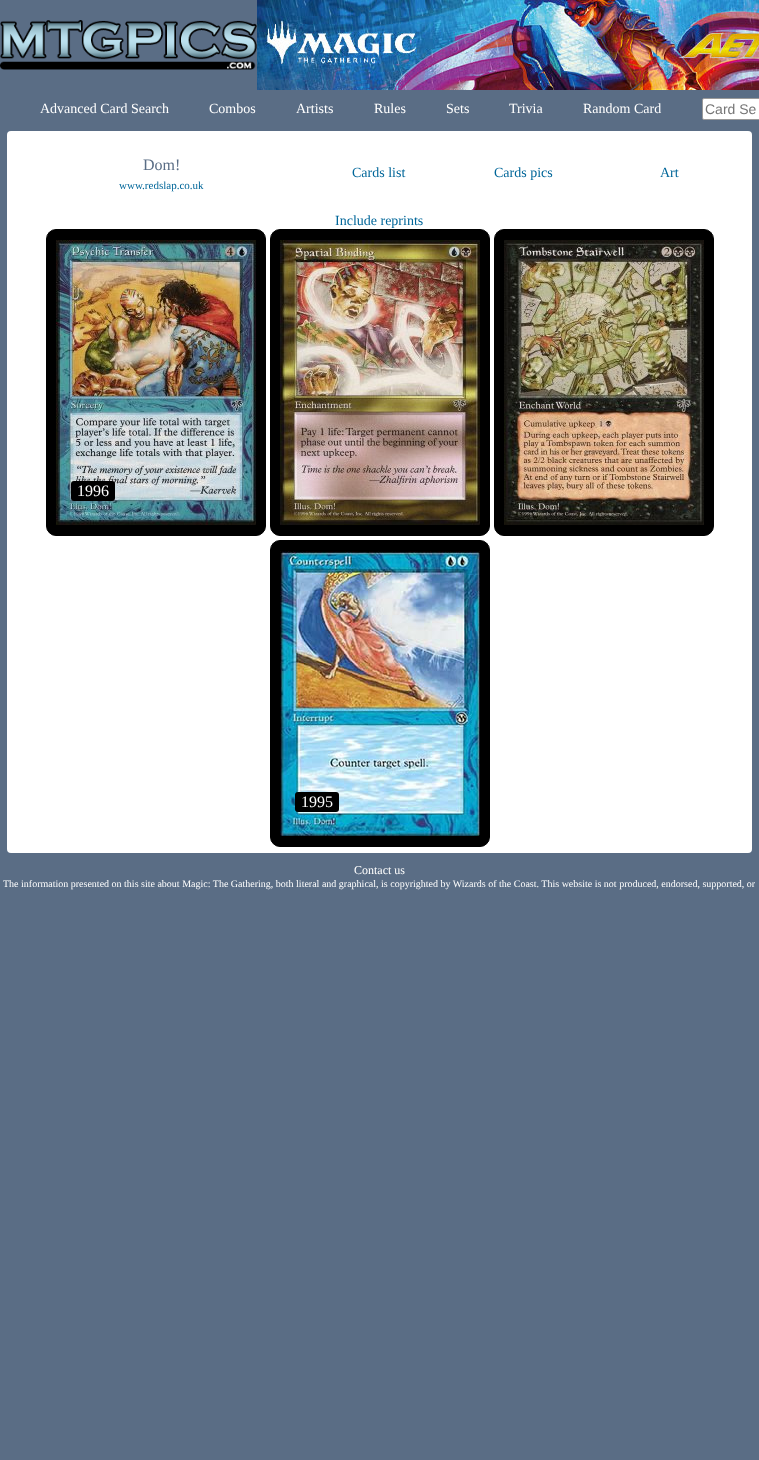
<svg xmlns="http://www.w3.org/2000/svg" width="759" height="1460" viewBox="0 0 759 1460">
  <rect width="100%" height="100%" fill="#5a6d85"/>
  <image x="0" y="20" width="257" height="50" href="img/1.png"/>
  <image x="257" y="0" width="502" height="90" href="img/2.png"/>
  <rect x="702.5" y="98.5" width="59" height="21" rx="1.5" fill="#fff" stroke="#999"/>
  <rect x="7" y="131" width="745" height="722" rx="4" fill="#fff"/>
  <rect x="46.5" y="229.5" width="219" height="306" rx="9.5" fill="#000" stroke="#000"/>
  <image x="56" y="240" width="200" height="285" href="img/3.png"/>
  <rect x="71" y="481" width="44" height="20" rx="3" fill="#000"/>
  <rect x="270.5" y="229.5" width="219" height="306" rx="9.5" fill="#000" stroke="#000"/>
  <image x="280" y="240" width="200" height="285" href="img/4.png"/>
  <rect x="494.5" y="229.5" width="219" height="306" rx="9.5" fill="#000" stroke="#000"/>
  <image x="504" y="240" width="200" height="285" href="img/5.png"/>
  <rect x="270.5" y="540.5" width="219" height="306" rx="9.5" fill="#000" stroke="#000"/>
  <image x="280" y="551" width="200" height="285" href="img/6.png"/>
  <rect x="295" y="792" width="44" height="20" rx="3" fill="#000"/>
  <g font-family="Liberation Serif" font-size="14" fill="#fff">
    <text x="40" y="113">Advanced Card Search</text>
    <text x="209" y="113">Combos</text>
    <text x="296" y="113">Artists</text>
    <text x="374" y="113">Rules</text>
    <text x="446" y="113">Sets</text>
    <text x="509" y="113">Trivia</text>
    <text x="583" y="113">Random Card</text>
  </g>
  <text x="705" y="114" font-family="Liberation Sans" font-size="14" fill="#757575">Card Se</text>
  <text x="143" y="170" font-family="Liberation Serif" font-size="16" fill="#5a6d85">Dom!</text>
  <text x="119" y="189" font-family="Liberation Serif" font-size="11" fill="#069">www.redslap.co.uk</text>
  <g font-family="Liberation Serif" font-size="14" fill="#069">
    <text x="352" y="177">Cards list</text>
    <text x="494" y="177">Cards pics</text>
    <text x="660" y="177">Art</text>
    <text x="335" y="225">Include reprints</text>
  </g>
  <g font-family="Liberation Serif" font-size="16" fill="#fff">
    <text x="77" y="496">1996</text>
    <text x="301" y="807">1995</text>
  </g>
  <text x="354" y="874" font-family="Liberation Serif" font-size="12" fill="#fff">Contact us</text>
  <text x="3" y="887" font-family="Liberation Serif" font-size="10" fill="#fff">The information presented on this site about Magic: The Gathering, both literal and graphical, is copyrighted by Wizards of the Coast. This website is not produced, endorsed, supported, or</text>
</svg>
